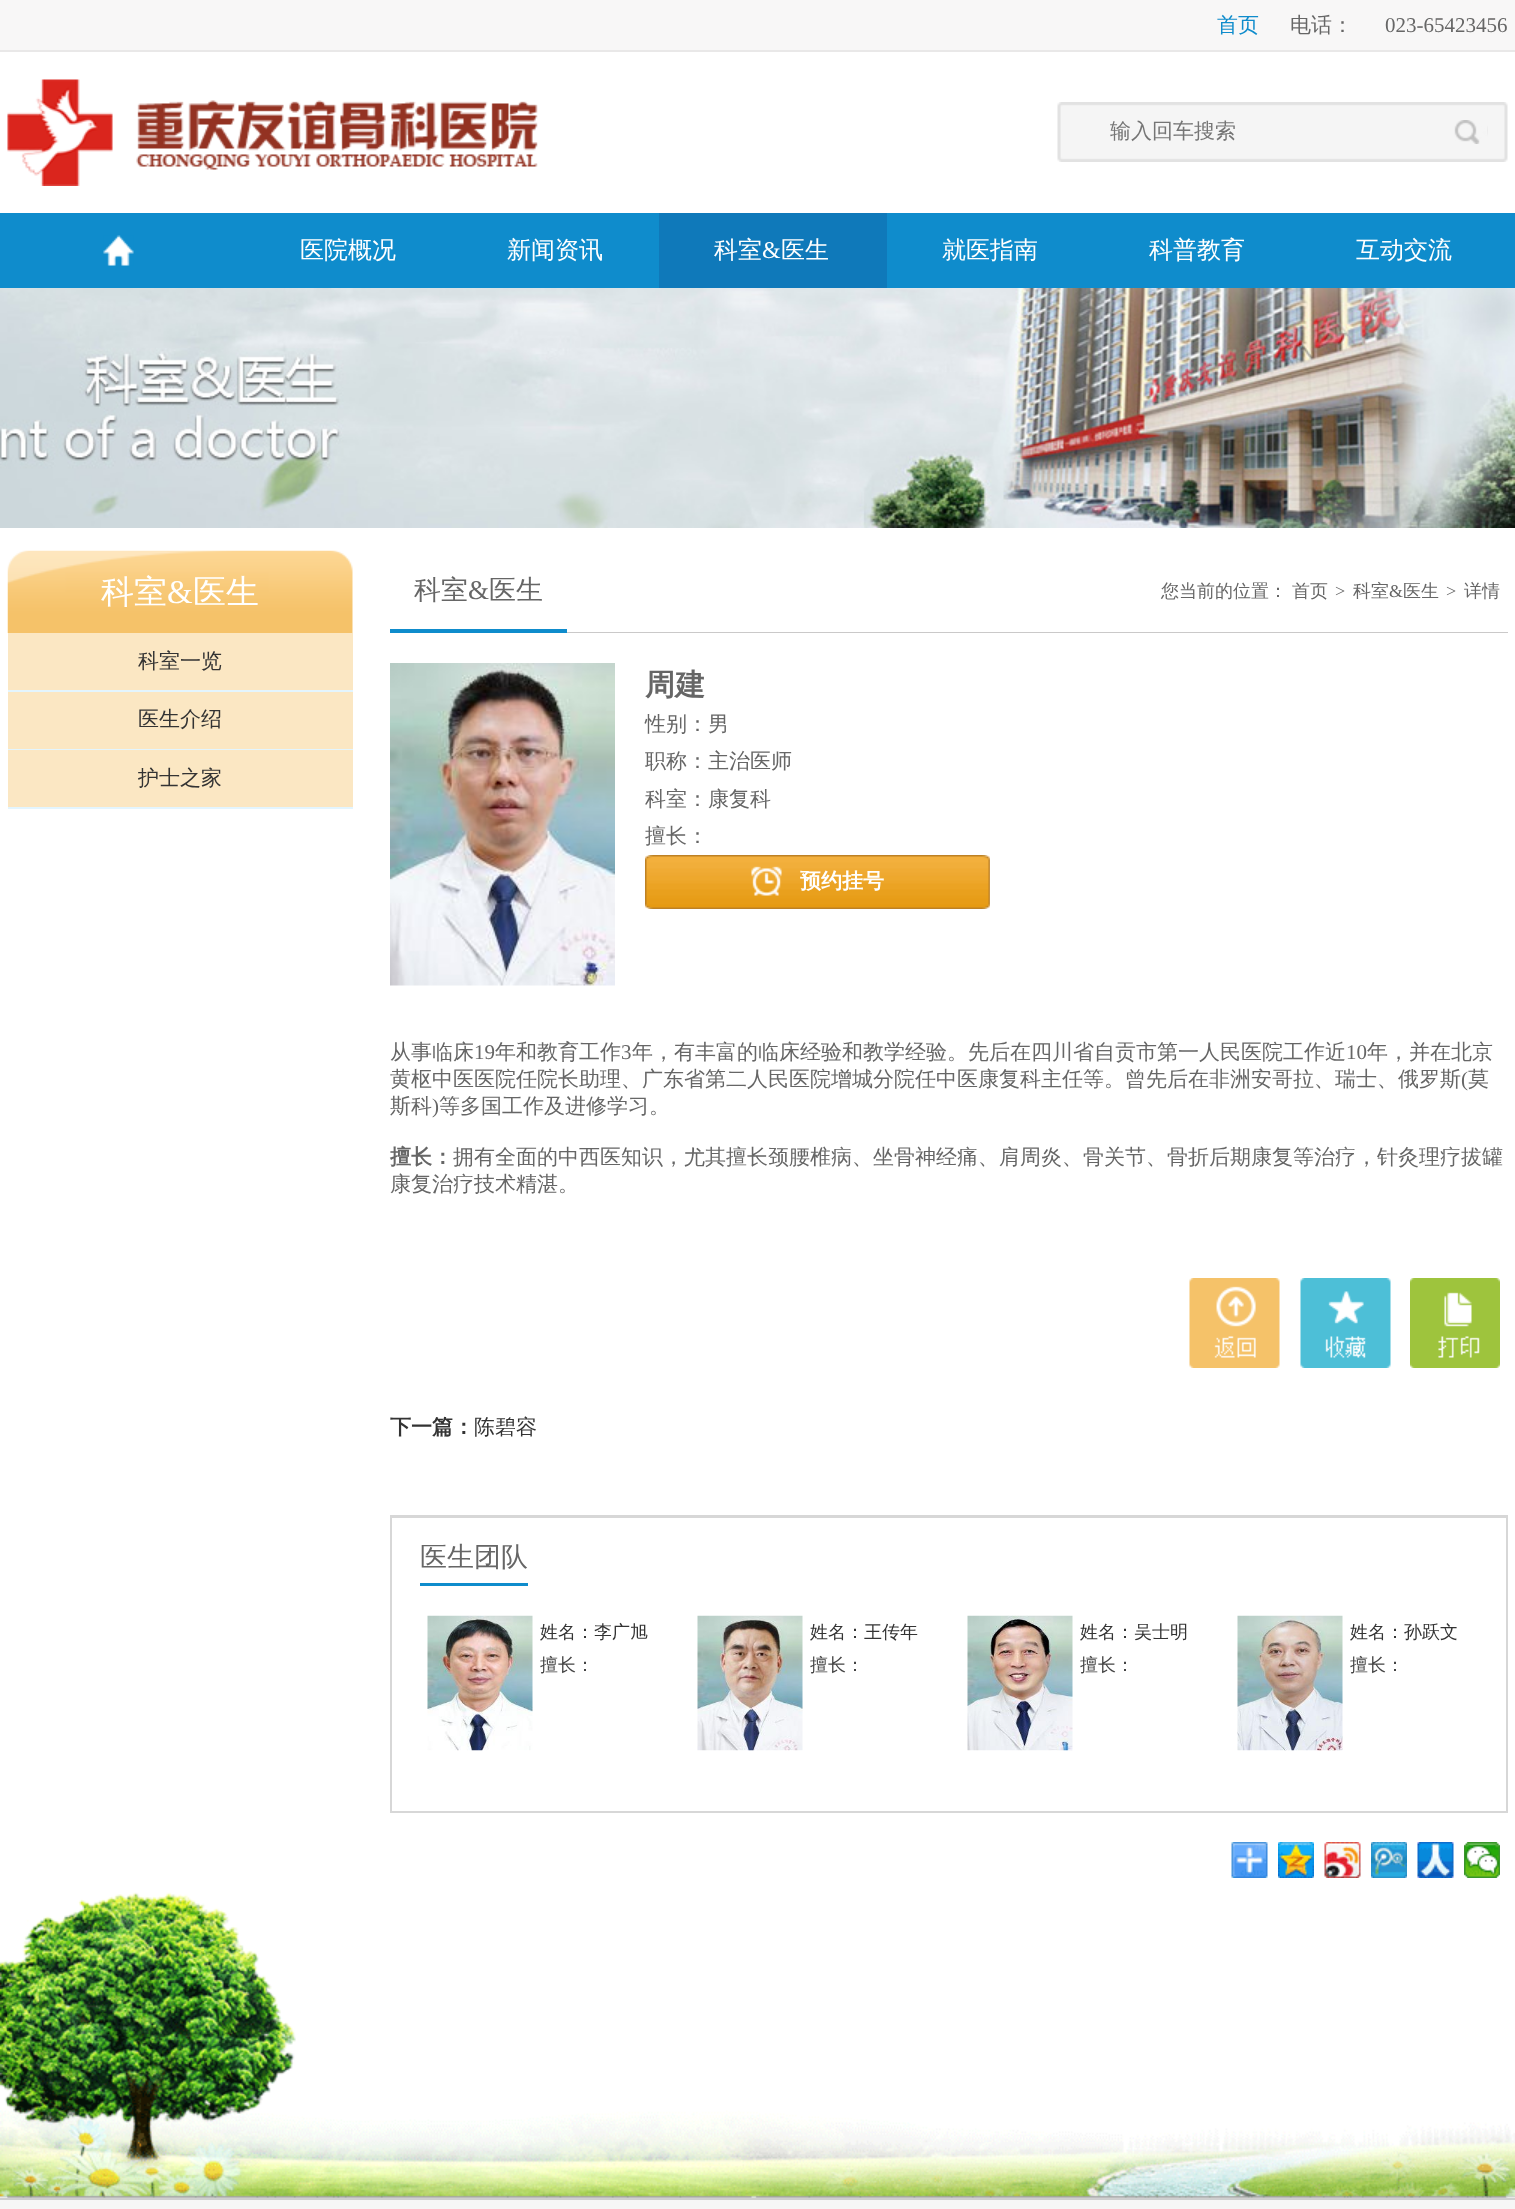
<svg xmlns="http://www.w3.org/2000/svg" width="1515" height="2209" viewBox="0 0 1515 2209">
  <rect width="100%" height="100%" fill="#fff"/>
  <path d="M0 0h1515v50H0z" fill="#f8f7f7"/>
  <path d="M0 50h1515v2H0z" fill="#e9e8e8"/>
  <image x="7" y="79" width="531" height="107" href="img/1.png"/>
  <image x="1057" y="102" width="451" height="60" href="img/2.png"/>
  <image x="1454" y="120" width="34" height="24" href="img/3.png"/>
  <path d="M0 213h1515v75H0z" fill="#0f8ccc"/>
  <image x="103" y="235" width="31" height="31" href="img/4.png"/>
  <path d="M659 213h228v75H659z" fill="#0f79ba"/>
  <image x="0" y="288" width="1515" height="240" href="img/5.png"/>
  <image x="7" y="398" width="1501" height="121" href="img/6.png"/>
  <image x="7" y="550" width="346" height="83" href="img/7.png"/>
  <path d="M8 633h345v57H8z" fill="#fbe7c3"/>
  <path d="M8 690h345v2H8z" fill="#e3f5fe"/>
  <path d="M8 692h345v57H8z" fill="#fbe7c3"/>
  <path d="M8 749h345v1H8z" fill="#e3f5fe"/>
  <path d="M8 750h345v57H8z" fill="#fbe7c3"/>
  <path d="M8 807h345v2H8z" fill="#e3f5fe"/>
  <path d="M390 629h177v4H390z" fill="#0f8ccc"/>
  <path d="M567 632h941v1H567z" fill="#cac9c9"/>
  <image x="390" y="663" width="225" height="323" href="img/8.png"/>
  <image x="645" y="855" width="345" height="54" href="img/9.png"/>
  <image x="1189" y="1278" width="91" height="90" href="img/10.png"/>
  <image x="1300" y="1278" width="91" height="90" href="img/11.png"/>
  <image x="1410" y="1278" width="90" height="90" href="img/12.png"/>
  <path d="M390 1515h1118v3H390z" fill="#d7d7d7"/>
  <path d="M1506 1515h2v297H1506z" fill="#d7d7d7"/>
  <path d="M390 1811h1118v2H390z" fill="#d7d7d7"/>
  <path d="M390 1515h2v297H390z" fill="#d7d7d7"/>
  <path d="M420 1583h108v3H420z" fill="#0f8ccc"/>
  <image x="427" y="1615" width="106" height="136" href="img/13.png"/>
  <image x="697" y="1615" width="106" height="136" href="img/14.png"/>
  <image x="967" y="1615" width="106" height="136" href="img/15.png"/>
  <image x="1237" y="1615" width="106" height="136" href="img/16.png"/>
  <image x="1231" y="1842" width="37" height="36" href="img/17.png"/>
  <image x="1278" y="1842" width="36" height="36" href="img/18.png"/>
  <image x="1324" y="1842" width="37" height="36" href="img/19.png"/>
  <image x="1371" y="1842" width="36" height="36" href="img/20.png"/>
  <image x="1417" y="1842" width="37" height="36" href="img/21.png"/>
  <image x="1464" y="1842" width="36" height="36" href="img/22.png"/>
  <image x="0" y="1892" width="1515" height="306" href="img/23.png"/>
  <image x="7" y="1962" width="1501" height="236" href="img/24.png"/>
  <path d="M0 2200h1515v9H0z" fill="#f6f6f6"/>
  <path d="M0 2198h1515v2H0z" fill="#cfcfcf"/>
  <text x="1217" y="32" font-family="WenQuanYi Zen Hei" font-size="21" font-weight="500" fill="#0f8ccc">首页</text>
  <text x="1290" y="32" font-family="WenQuanYi Zen Hei" font-size="21" font-weight="500" fill="#666">电话：</text>
  <text x="1385" y="32" font-family="Liberation Serif" font-size="21" fill="#666">023-65423456</text>
  <text x="1110" y="138" font-family="WenQuanYi Zen Hei" font-size="21" font-weight="500" fill="#757575">输入回车搜索</text>
  <g font-family="WenQuanYi Zen Hei" font-size="24" font-weight="500" fill="#fff">
    <text x="300" y="258">医院概况</text>
    <text x="507" y="258">新闻资讯</text>
    <text x="714" y="258">科室</text>
  </g>
  <text x="762" y="258" font-family="Liberation Serif" font-size="24" fill="#fff">&amp;</text>
  <g font-family="WenQuanYi Zen Hei" font-size="24" font-weight="500" fill="#fff">
    <text x="781" y="258">医生</text>
    <text x="942" y="258">就医指南</text>
    <text x="1149" y="258">科普教育</text>
    <text x="1356" y="258">互动交流</text>
  </g>
  <text x="101" y="603" font-family="WenQuanYi Zen Hei" font-size="33" font-weight="500" fill="#fff">科室</text>
  <text x="167" y="603" font-family="Liberation Serif" font-size="33" fill="#fff">&amp;</text>
  <text x="193" y="603" font-family="WenQuanYi Zen Hei" font-size="33" font-weight="500" fill="#fff">医生</text>
  <g font-family="WenQuanYi Zen Hei" font-size="21" font-weight="500" fill="#333">
    <text x="138" y="668">科室一览</text>
    <text x="138" y="726">医生介绍</text>
    <text x="138" y="785">护士之家</text>
  </g>
  <text x="414" y="599" font-family="WenQuanYi Zen Hei" font-size="27" font-weight="500" fill="#666">科室</text>
  <text x="468" y="599" font-family="Liberation Serif" font-size="27" fill="#666">&amp;</text>
  <text x="489" y="599" font-family="WenQuanYi Zen Hei" font-size="27" font-weight="500" fill="#666">医生</text>
  <g font-family="WenQuanYi Zen Hei" font-size="18" font-weight="500" fill="#666">
    <text x="1161" y="597">您当前的位置：</text>
    <text x="1292" y="597">首页</text>
  </g>
  <text x="1335" y="597" font-family="Liberation Serif" font-size="18" fill="#666">&gt;</text>
  <text x="1353" y="597" font-family="WenQuanYi Zen Hei" font-size="18" font-weight="500" fill="#666">科室</text>
  <text x="1389" y="597" font-family="Liberation Serif" font-size="18" fill="#666">&amp;</text>
  <text x="1403" y="597" font-family="WenQuanYi Zen Hei" font-size="18" font-weight="500" fill="#666">医生</text>
  <text x="1446" y="597" font-family="Liberation Serif" font-size="18" fill="#666">&gt;</text>
  <text x="1464" y="597" font-family="WenQuanYi Zen Hei" font-size="18" font-weight="500" fill="#666">详情</text>
  <text x="645" y="695" font-family="WenQuanYi Zen Hei" font-size="30" font-weight="bold" fill="#666">周建</text>
  <g font-family="WenQuanYi Zen Hei" font-size="21" font-weight="500" fill="#666">
    <text x="645" y="731">性别：男</text>
    <text x="645" y="768">职称：主治医师</text>
    <text x="645" y="806">科室：康复科</text>
    <text x="645" y="843">擅长：</text>
  </g>
  <text x="800" y="888" font-family="WenQuanYi Zen Hei" font-size="21" font-weight="bold" fill="#fff">预约挂号</text>
  <text x="390" y="1059" font-family="WenQuanYi Zen Hei" font-size="21" font-weight="500" fill="#666">从事临床</text>
  <text x="474" y="1059" font-family="Liberation Serif" font-size="21" fill="#666">19</text>
  <text x="495" y="1059" font-family="WenQuanYi Zen Hei" font-size="21" font-weight="500" fill="#666">年和教育工作</text>
  <text x="621" y="1059" font-family="Liberation Serif" font-size="21" fill="#666">3</text>
  <text x="632" y="1059" font-family="WenQuanYi Zen Hei" font-size="21" font-weight="500" fill="#666">年，有丰富的临床经验和教学经验。先后在四川省自贡市第一人民医院工作近</text>
  <text x="1346" y="1059" font-family="Liberation Serif" font-size="21" fill="#666">10</text>
  <g font-family="WenQuanYi Zen Hei" font-size="21" font-weight="500" fill="#666">
    <text x="1367" y="1059">年，并在北京</text>
    <text x="390" y="1086">黄枢中医医院任院长助理、广东省第二人民医院增城分院任中医康复科主任等。曾先后在非洲安哥拉、瑞士、俄罗斯</text>
  </g>
  <text x="1461" y="1086" font-family="Liberation Serif" font-size="21" fill="#666">(</text>
  <g font-family="WenQuanYi Zen Hei" font-size="21" font-weight="500" fill="#666">
    <text x="1468" y="1086">莫</text>
    <text x="390" y="1113">斯科</text>
  </g>
  <text x="432" y="1113" font-family="Liberation Serif" font-size="21" fill="#666">)</text>
  <text x="439" y="1113" font-family="WenQuanYi Zen Hei" font-size="21" font-weight="500" fill="#666">等多国工作及进修学习。</text>
  <text x="390" y="1164" font-family="WenQuanYi Zen Hei" font-size="21" font-weight="bold" fill="#666">擅长：</text>
  <g font-family="WenQuanYi Zen Hei" font-size="21" font-weight="500" fill="#666">
    <text x="453" y="1164">拥有全面的中西医知识，尤其擅长颈腰椎病、坐骨神经痛、肩周炎、骨关节、骨折后期康复等治疗，针灸理疗拔罐</text>
    <text x="390" y="1191">康复治疗技术精湛。</text>
  </g>
  <text x="390" y="1434" font-family="WenQuanYi Zen Hei" font-size="21" font-weight="bold" fill="#333">下一篇：</text>
  <text x="474" y="1434" font-family="WenQuanYi Zen Hei" font-size="21" font-weight="500" fill="#333">陈碧容</text>
  <text x="420" y="1566" font-family="WenQuanYi Zen Hei" font-size="27" font-weight="500" fill="#666">医生团队</text>
  <text x="540" y="1638" font-family="WenQuanYi Zen Hei" font-size="18" font-weight="500" fill="#333">姓名：李广旭</text>
  <text x="540" y="1671" font-family="WenQuanYi Zen Hei" font-size="18" font-weight="500" fill="#444">擅长：</text>
  <text x="810" y="1638" font-family="WenQuanYi Zen Hei" font-size="18" font-weight="500" fill="#333">姓名：王传年</text>
  <text x="810" y="1671" font-family="WenQuanYi Zen Hei" font-size="18" font-weight="500" fill="#444">擅长：</text>
  <text x="1080" y="1638" font-family="WenQuanYi Zen Hei" font-size="18" font-weight="500" fill="#333">姓名：吴士明</text>
  <text x="1080" y="1671" font-family="WenQuanYi Zen Hei" font-size="18" font-weight="500" fill="#444">擅长：</text>
  <text x="1350" y="1638" font-family="WenQuanYi Zen Hei" font-size="18" font-weight="500" fill="#333">姓名：孙跃文</text>
  <text x="1350" y="1671" font-family="WenQuanYi Zen Hei" font-size="18" font-weight="500" fill="#444">擅长：</text>
</svg>
